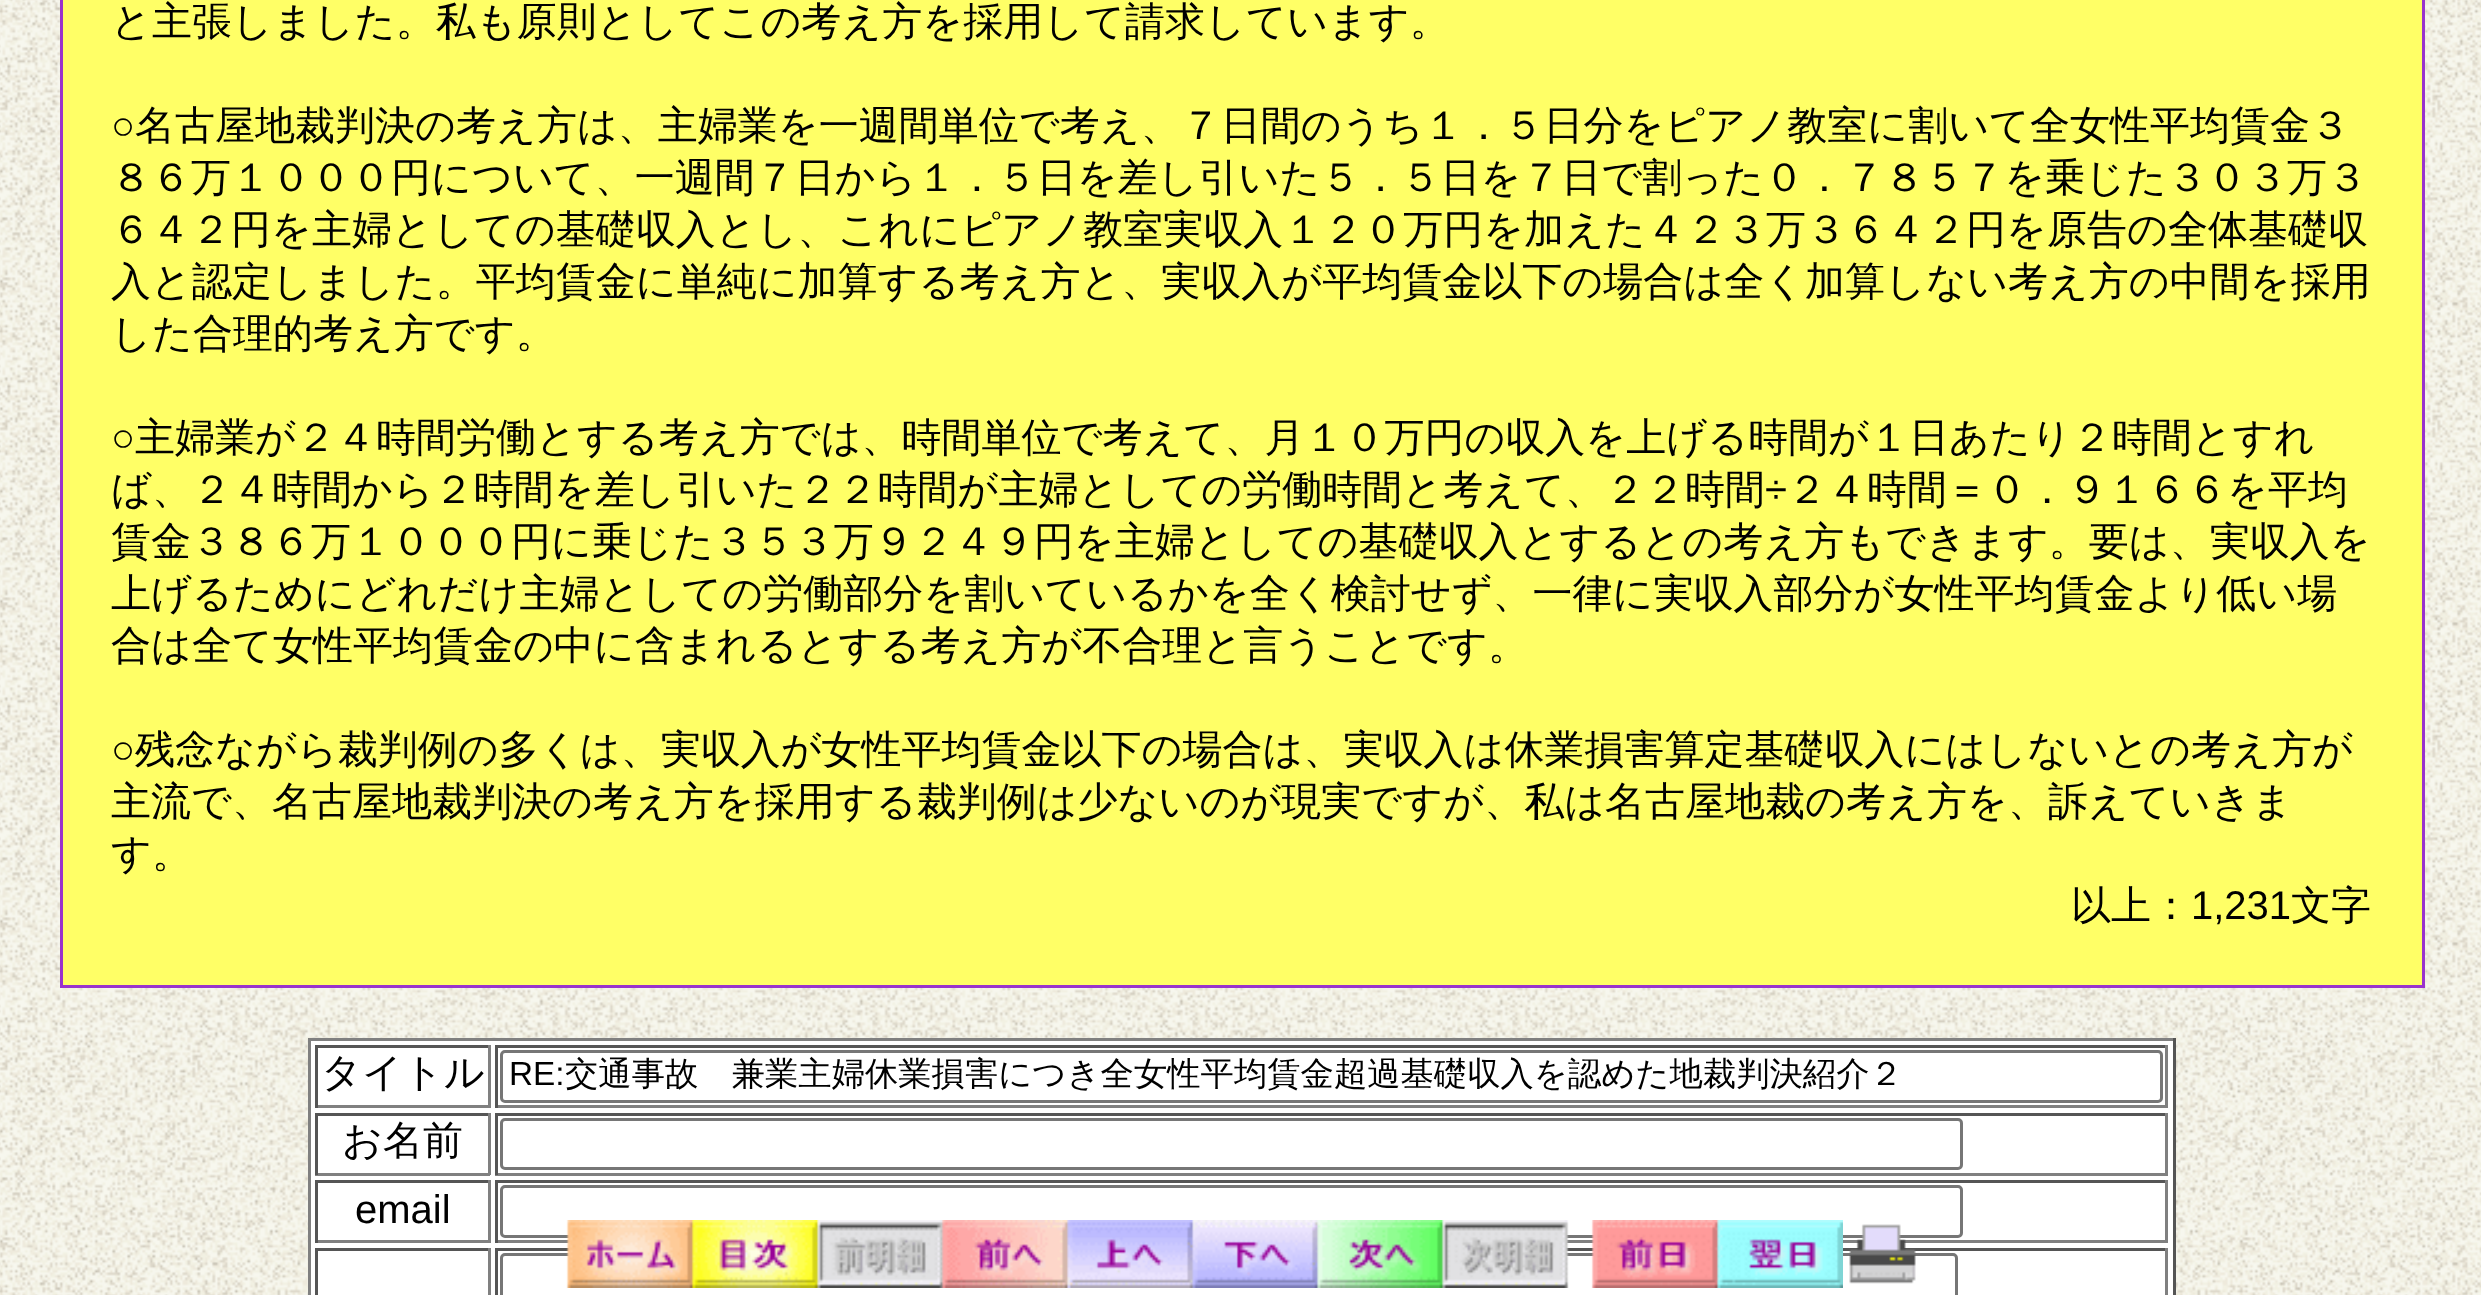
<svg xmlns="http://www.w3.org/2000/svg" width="2481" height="1295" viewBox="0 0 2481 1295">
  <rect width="100%" height="100%" fill="#fff"/>
  <image x="0" y="0" width="2481" height="1295" href="img/1.png"/>
  <path d="M61.5 -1.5h2362v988H61.5z" fill="#ff6" stroke="#93c" stroke-width="3"/>
  <path d="M311 1041h1862v254H311z" fill="#fff"/>
  <path d="M308 1038h1867v3H308z" fill="#808080"/>
  <path d="M2173 1038h3v257H2173z" fill="#555"/>
  <path d="M308 1038h3v257H308z" fill="#808080"/>
  <path d="M315 1045h175v3H315z" fill="#555"/>
  <path d="M488 1045h3v63H488z" fill="#808080"/>
  <path d="M315 1105h175v3H315z" fill="#808080"/>
  <path d="M315 1045h3v63H315z" fill="#555"/>
  <path d="M495 1045h1673v3H495z" fill="#555"/>
  <path d="M2165 1045h3v63H2165z" fill="#808080"/>
  <path d="M495 1105h1673v3H495z" fill="#808080"/>
  <path d="M495 1045h3v63H495z" fill="#555"/>
  <rect x="501.5" y="1051.5" width="1660" height="50" rx="3.5" fill="none" stroke="#767676" stroke-width="3"/>
  <path d="M315 1113h175v3H315z" fill="#555"/>
  <path d="M488 1113h3v62H488z" fill="#808080"/>
  <path d="M315 1173h175v3H315z" fill="#808080"/>
  <path d="M315 1113h3v62H315z" fill="#555"/>
  <path d="M495 1113h1673v3H495z" fill="#555"/>
  <path d="M2165 1113h3v62H2165z" fill="#808080"/>
  <path d="M495 1173h1673v3H495z" fill="#808080"/>
  <path d="M495 1113h3v62H495z" fill="#555"/>
  <rect x="501.5" y="1119.5" width="1460" height="49" rx="3.5" fill="none" stroke="#767676" stroke-width="3"/>
  <path d="M315 1180h175v3H315z" fill="#555"/>
  <path d="M488 1180h3v63H488z" fill="#808080"/>
  <path d="M315 1240h175v3H315z" fill="#808080"/>
  <path d="M315 1180h3v63H315z" fill="#555"/>
  <path d="M495 1180h1673v3H495z" fill="#555"/>
  <path d="M2165 1180h3v63H2165z" fill="#808080"/>
  <path d="M495 1240h1673v3H495z" fill="#808080"/>
  <path d="M495 1180h3v63H495z" fill="#555"/>
  <rect x="501.5" y="1186.5" width="1460" height="50" rx="3.5" fill="none" stroke="#767676" stroke-width="3"/>
  <path d="M315 1248h175v3H315z" fill="#555"/>
  <path d="M488 1248h3v47H488z" fill="#808080"/>
  <path d="M315 1248h3v47H315z" fill="#555"/>
  <path d="M495 1248h1673v3H495z" fill="#555"/>
  <path d="M2165 1248h3v47H2165z" fill="#808080"/>
  <path d="M495 1248h3v47H495z" fill="#555"/>
  <rect x="501.5" y="1254.5" width="1455" height="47" rx="3.5" fill="none" stroke="#767676" stroke-width="3"/>
  <image x="566" y="1220" width="1350" height="68" href="img/2.png"/>
  <text x="111" y="35" font-family="WenQuanYi Zen Hei" font-size="40" font-weight="500" fill="#000">と主張しました。私も原則としてこの考え方を採用して請求しています。</text>
  <text x="111" y="139" font-family="Liberation Sans" font-size="40" fill="#000">○</text>
  <g font-family="WenQuanYi Zen Hei" font-size="40" font-weight="500" fill="#000">
    <text x="135" y="139">名古屋地裁判決の考え方は、主婦業を一週間単位で考え、７日間のうち１．５日分をピアノ教室に割いて全女性平均賃金３</text>
    <text x="111" y="191">８６万１０００円について、一週間７日から１．５日を差し引いた５．５日を７日で割った０．７８５７を乗じた３０３万３</text>
    <text x="111" y="243">６４２円を主婦としての基礎収入とし、これにピアノ教室実収入１２０万円を加えた４２３万３６４２円を原告の全体基礎収</text>
    <text x="111" y="295">入と認定しました。平均賃金に単純に加算する考え方と、実収入が平均賃金以下の場合は全く加算しない考え方の中間を採用</text>
    <text x="111" y="347">した合理的考え方です。</text>
  </g>
  <text x="111" y="451" font-family="Liberation Sans" font-size="40" fill="#000">○</text>
  <g font-family="WenQuanYi Zen Hei" font-size="40" font-weight="500" fill="#000">
    <text x="135" y="451">主婦業が２４時間労働とする考え方では、時間単位で考えて、月１０万円の収入を上げる時間が１日あたり２時間とすれ</text>
    <text x="111" y="503">ば、２４時間から２時間を差し引いた２２時間が主婦としての労働時間と考えて、２２時間</text>
  </g>
  <text x="1765" y="503" font-family="Liberation Sans" font-size="40" fill="#000">÷</text>
  <g font-family="WenQuanYi Zen Hei" font-size="40" font-weight="500" fill="#000">
    <text x="1787" y="503">２４時間＝０．９１６６を平均</text>
    <text x="111" y="555">賃金３８６万１０００円に乗じた３５３万９２４９円を主婦としての基礎収入とするとの考え方もできます。要は、実収入を</text>
    <text x="111" y="607">上げるためにどれだけ主婦としての労働部分を割いているかを全く検討せず、一律に実収入部分が女性平均賃金より低い場</text>
    <text x="111" y="659">合は全て女性平均賃金の中に含まれるとする考え方が不合理と言うことです。</text>
  </g>
  <text x="111" y="763" font-family="Liberation Sans" font-size="40" fill="#000">○</text>
  <g font-family="WenQuanYi Zen Hei" font-size="40" font-weight="500" fill="#000">
    <text x="135" y="763">残念ながら裁判例の多くは、実収入が女性平均賃金以下の場合は、実収入は休業損害算定基礎収入にはしないとの考え方が</text>
    <text x="111" y="815">主流で、名古屋地裁判決の考え方を採用する裁判例は少ないのが現実ですが、私は名古屋地裁の考え方を、訴えていきま</text>
    <text x="111" y="867">す。</text>
    <text x="2071" y="919">以上：</text>
  </g>
  <text x="2191" y="919" font-family="Liberation Sans" font-size="40" fill="#000">1,231</text>
  <g font-family="WenQuanYi Zen Hei" font-size="40" font-weight="500" fill="#000">
    <text x="2291" y="919">文字</text>
    <text x="321" y="1086">タイトル</text>
  </g>
  <text x="509" y="1085" font-family="Liberation Sans" font-size="33.35" fill="#000">RE:</text>
  <text x="565" y="1085" font-family="WenQuanYi Zen Hei" font-size="33.35" font-weight="500" fill="#000">交通事故　兼業主婦休業損害につき全女性平均賃金超過基礎収入を認めた地裁判決紹介２</text>
  <text x="342" y="1154" font-family="WenQuanYi Zen Hei" font-size="40" font-weight="500" fill="#000">お名前</text>
  <text x="355" y="1223" font-family="Liberation Sans" font-size="40" fill="#000">email</text>
</svg>
